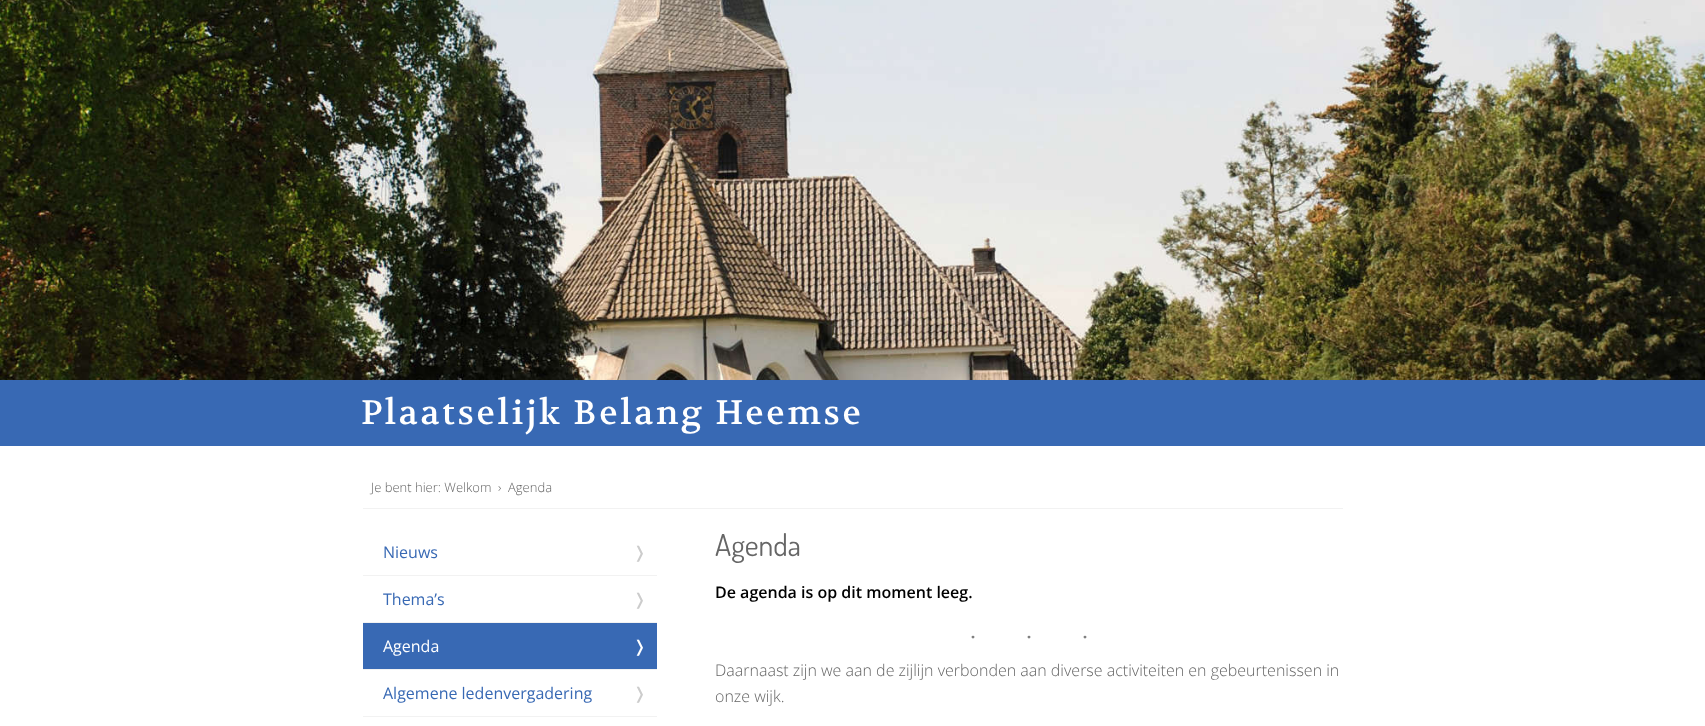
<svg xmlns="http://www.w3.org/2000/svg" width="1705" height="726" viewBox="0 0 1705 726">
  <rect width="100%" height="100%" fill="#fff"/>
  <image x="0" y="0" width="1705" height="380" href="img/1.png"/>
  <path d="M0 380h1705v66H0z" fill="#3869b4"/>
  <path d="M363 508h980v1H363z" fill="#f2f2f2"/>
  <path d="M363 575h294v1H363z" fill="#f2f2f2"/>
  <path d="M363 622h294v1H363z" fill="#f2f2f2"/>
  <path d="M363 623h294v46H363z" fill="#3869b4"/>
  <path d="M363 669h294v1H363z" fill="#f2f2f2"/>
  <path d="M363 716h294v1H363z" fill="#f2f2f2"/>
  <text x="361" y="424" font-family="Volkhov" font-size="34" letter-spacing="2.75" fill="#fff">Plaatselijk Belang Heemse</text>
  <g font-family="Open Sans" font-size="13" font-weight="300" fill="#666">
    <text x="371" y="492">Je bent hier: Welkom</text>
    <text x="498" y="492" xml:space="preserve">›  Agenda</text>
  </g>
  <text x="383" y="558" font-family="Open Sans" font-size="16" fill="#3869b4">Nieuws</text>
  <text x="633" y="558" font-family="DejaVu Sans" font-size="16" fill="#ccc">❭</text>
  <text x="383" y="605" font-family="Open Sans" font-size="16" fill="#3869b4">Thema’s</text>
  <text x="633" y="605" font-family="DejaVu Sans" font-size="16" fill="#ccc">❭</text>
  <text x="383" y="652" font-family="Open Sans" font-size="16" fill="#fff">Agenda</text>
  <text x="633" y="652" font-family="DejaVu Sans" font-size="16" fill="#fff">❭</text>
  <text x="383" y="699" font-family="Open Sans" font-size="16" fill="#3869b4">Algemene ledenvergadering</text>
  <text x="633" y="699" font-family="DejaVu Sans" font-size="16" fill="#ccc">❭</text>
  <text x="715" y="556" font-family="Dosis" font-size="30" fill="#666">Agenda</text>
  <text x="715" y="598" font-family="Open Sans" font-size="16" font-weight="600" fill="#000">De agenda is op dit moment leeg.</text>
  <text x="969" y="645" font-family="Liberation Serif" font-size="24" letter-spacing="48" fill="#808080">···</text>
  <g font-family="Open Sans" font-size="16" font-weight="300" fill="#666">
    <text x="715" y="676">Daarnaast zijn we aan de zijlijn verbonden aan diverse activiteiten en gebeurtenissen in</text>
    <text x="715" y="702">onze wijk.</text>
  </g>
</svg>
